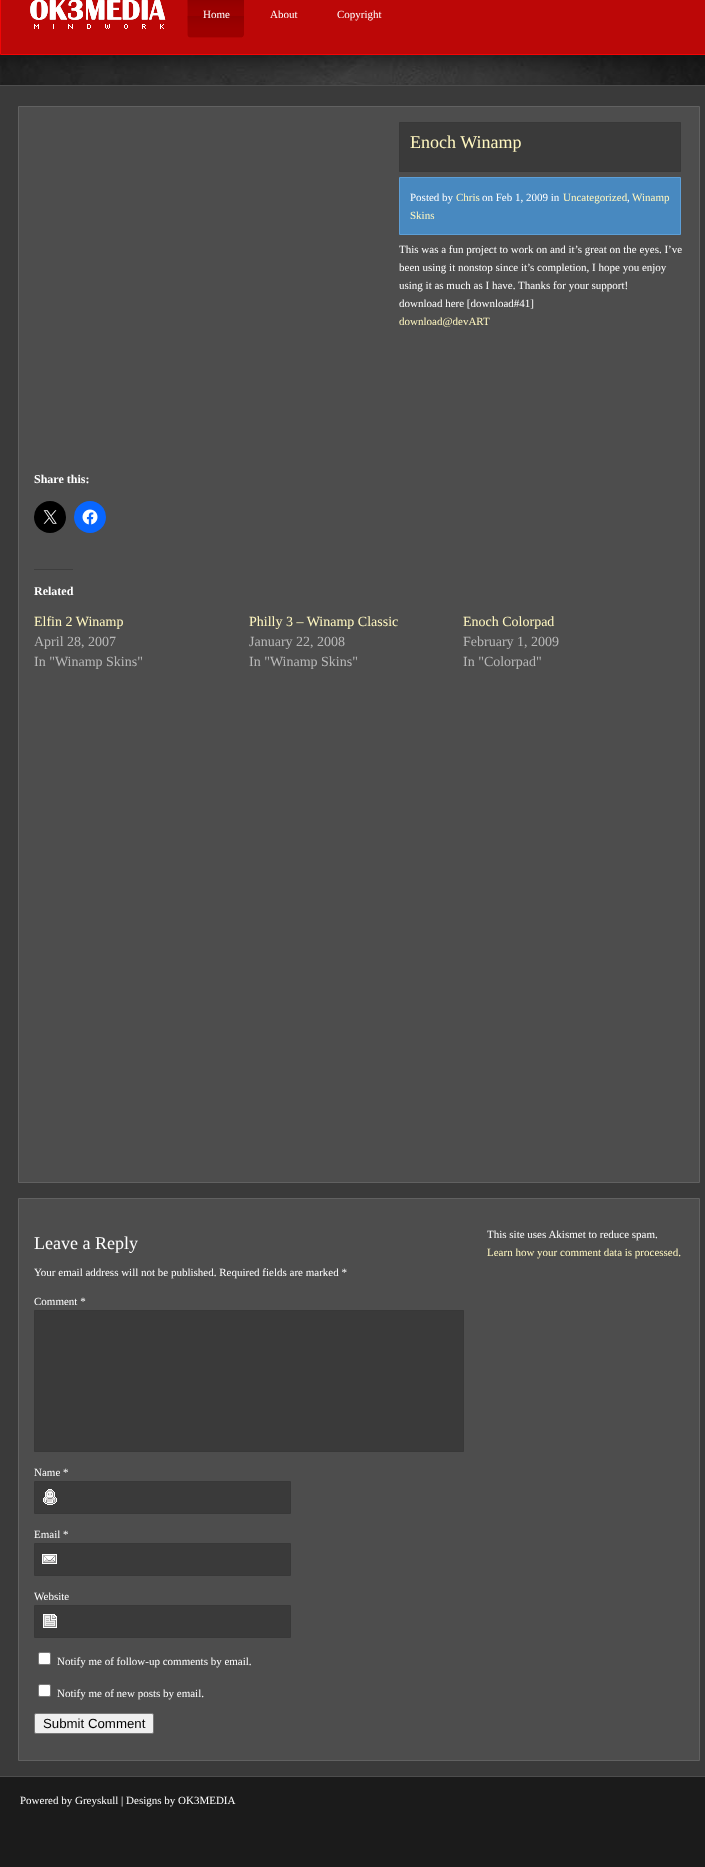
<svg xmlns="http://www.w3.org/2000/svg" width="705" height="1867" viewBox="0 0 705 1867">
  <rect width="100%" height="100%" fill="#1b1b1b"/>
  <image x="0" y="55" width="705" height="30" href="img/1.png"/>
  <path d="M0.5 -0.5h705v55H0.5z" fill="#bc0707" stroke="#f30505"/>
  <image x="30" y="0" width="136" height="29" href="img/2.png"/>
  <image x="226" y="0" width="18" height="16" href="img/3.png"/>
  <image x="187" y="0" width="39" height="16" href="img/4.png"/>
  <image x="187" y="16" width="63" height="27" href="img/5.png"/>
  <image x="242" y="16" width="8" height="22" href="img/6.png"/>
  <path d="M-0.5 85.5h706v1691H-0.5z" fill="#3a3a3a" stroke="#4d4d4d"/>
  <path d="M18.5 106.5h681v1076H18.5z" fill="#4d4d4d" stroke="#616161"/>
  <path d="M399.5 122.5h281v49H399.5z" fill="#3a3a3a" stroke="#383838"/>
  <path d="M399.5 177.5h281v57H399.5z" fill="#4889c0" stroke="#5d9fd7"/>
  <circle cx="50" cy="517" r="16" fill="#000"/>
  <image x="43" y="510" width="14" height="14" href="img/7.png"/>
  <circle cx="90" cy="517" r="16" fill="#0866ff"/>
  <image x="82" y="509" width="16" height="16" href="img/8.png"/>
  <path d="M34 569h39v1H34z" fill="#3e3e3e"/>
  <path d="M18.5 1198.5h681v562H18.5z" fill="#4d4d4d" stroke="#616161"/>
  <path d="M34.5 1310.5h429v141H34.5z" fill="#3a3a3a" stroke="#383838"/>
  <path d="M35 1482h255v31H35z" fill="#3a3a3a"/>
  <image x="43" y="1489" width="14" height="16" href="img/9.png"/>
  <path d="M34.5 1481.5h256v32H34.5z" fill="none" stroke="#383838"/>
  <path d="M35 1544h255v31H35z" fill="#3a3a3a"/>
  <image x="42" y="1554" width="15" height="10" href="img/10.png"/>
  <path d="M34.5 1543.5h256v32H34.5z" fill="none" stroke="#383838"/>
  <path d="M35 1606h255v31H35z" fill="#3a3a3a"/>
  <image x="43" y="1614" width="14" height="14" href="img/11.png"/>
  <path d="M34.5 1605.5h256v32H34.5z" fill="none" stroke="#383838"/>
  <rect x="38.5" y="1652.5" width="12" height="12" rx="1.5" fill="#fff" stroke="#767676"/>
  <rect x="38.5" y="1684.5" width="12" height="12" rx="1.5" fill="#fff" stroke="#767676"/>
  <rect x="34.5" y="1713.5" width="119" height="20" rx="1.5" fill="#efefef" stroke="#767676"/>
  <g font-family="Liberation Serif" font-size="11" fill="#fff">
    <text x="203" y="18">Home</text>
    <text x="270" y="18">About</text>
    <text x="337" y="18">Copyright</text>
  </g>
  <text x="410" y="148" font-family="Liberation Serif" font-size="18" fill="#fff7c0">Enoch Winamp</text>
  <text x="410" y="201" font-family="Liberation Serif" font-size="11" fill="#fff">Posted by</text>
  <text x="456" y="201" font-family="Liberation Serif" font-size="11" fill="#fff7c0">Chris</text>
  <text x="482" y="201" font-family="Liberation Serif" font-size="11" fill="#fff">on Feb 1, 2009 in</text>
  <text x="563" y="201" font-family="Liberation Serif" font-size="11" fill="#fff7c0">Uncategorized</text>
  <text x="627" y="201" font-family="Liberation Serif" font-size="11" fill="#fff">,</text>
  <g font-family="Liberation Serif" font-size="11" fill="#fff7c0">
    <text x="632" y="201">Winamp</text>
    <text x="410" y="219">Skins</text>
  </g>
  <g font-family="Liberation Serif" font-size="11" fill="#fff">
    <text x="399" y="253">This was a fun project to work on and it’s great on the eyes. I’ve</text>
    <text x="399" y="271">been using it nonstop since it’s completion, I hope you enjoy</text>
    <text x="399" y="289">using it as much as I have. Thanks for your support!</text>
    <text x="399" y="307">download here [download#41]</text>
  </g>
  <text x="399" y="325" font-family="Liberation Serif" font-size="11" fill="#fff7c0">download@devART</text>
  <g font-family="Liberation Serif" font-size="12" font-weight="bold" fill="#fff">
    <text x="34" y="483">Share this:</text>
    <text x="34" y="595">Related</text>
  </g>
  <text x="34" y="626" font-family="Liberation Serif" font-size="14" fill="#fff7c0">Elfin 2 Winamp</text>
  <g font-family="Liberation Serif" font-size="14" fill="#b8b8b8">
    <text x="34" y="646">April 28, 2007</text>
    <text x="34" y="666">In "Winamp Skins"</text>
  </g>
  <text x="249" y="626" font-family="Liberation Serif" font-size="14" fill="#fff7c0">Philly 3 – Winamp Classic</text>
  <g font-family="Liberation Serif" font-size="14" fill="#b8b8b8">
    <text x="249" y="646">January 22, 2008</text>
    <text x="249" y="666">In "Winamp Skins"</text>
  </g>
  <text x="463" y="626" font-family="Liberation Serif" font-size="14" fill="#fff7c0">Enoch Colorpad</text>
  <g font-family="Liberation Serif" font-size="14" fill="#b8b8b8">
    <text x="463" y="646">February 1, 2009</text>
    <text x="463" y="666">In "Colorpad"</text>
  </g>
  <text x="34" y="1249" font-family="Liberation Serif" font-size="18" fill="#fff">Leave a Reply</text>
  <g font-family="Liberation Serif" font-size="11" fill="#fff">
    <text x="34" y="1276">Your email address will not be published. Required fields are marked *</text>
    <text x="34" y="1305">Comment *</text>
    <text x="34" y="1476">Name *</text>
    <text x="34" y="1538">Email *</text>
    <text x="34" y="1600">Website</text>
    <text x="57" y="1665">Notify me of follow-up comments by email.</text>
    <text x="57" y="1697">Notify me of new posts by email.</text>
  </g>
  <text x="43" y="1728" font-family="Liberation Sans" font-size="13.25" fill="#000">Submit Comment</text>
  <text x="487" y="1238" font-family="Liberation Serif" font-size="11" fill="#fff">This site uses Akismet to reduce spam.</text>
  <text x="487" y="1256" font-family="Liberation Serif" font-size="11" fill="#fff7c0">Learn how your comment data is processed.</text>
  <text x="20" y="1804" font-family="Liberation Serif" font-size="11" fill="#fff">Powered by Greyskull | Designs by OK3MEDIA</text>
</svg>
